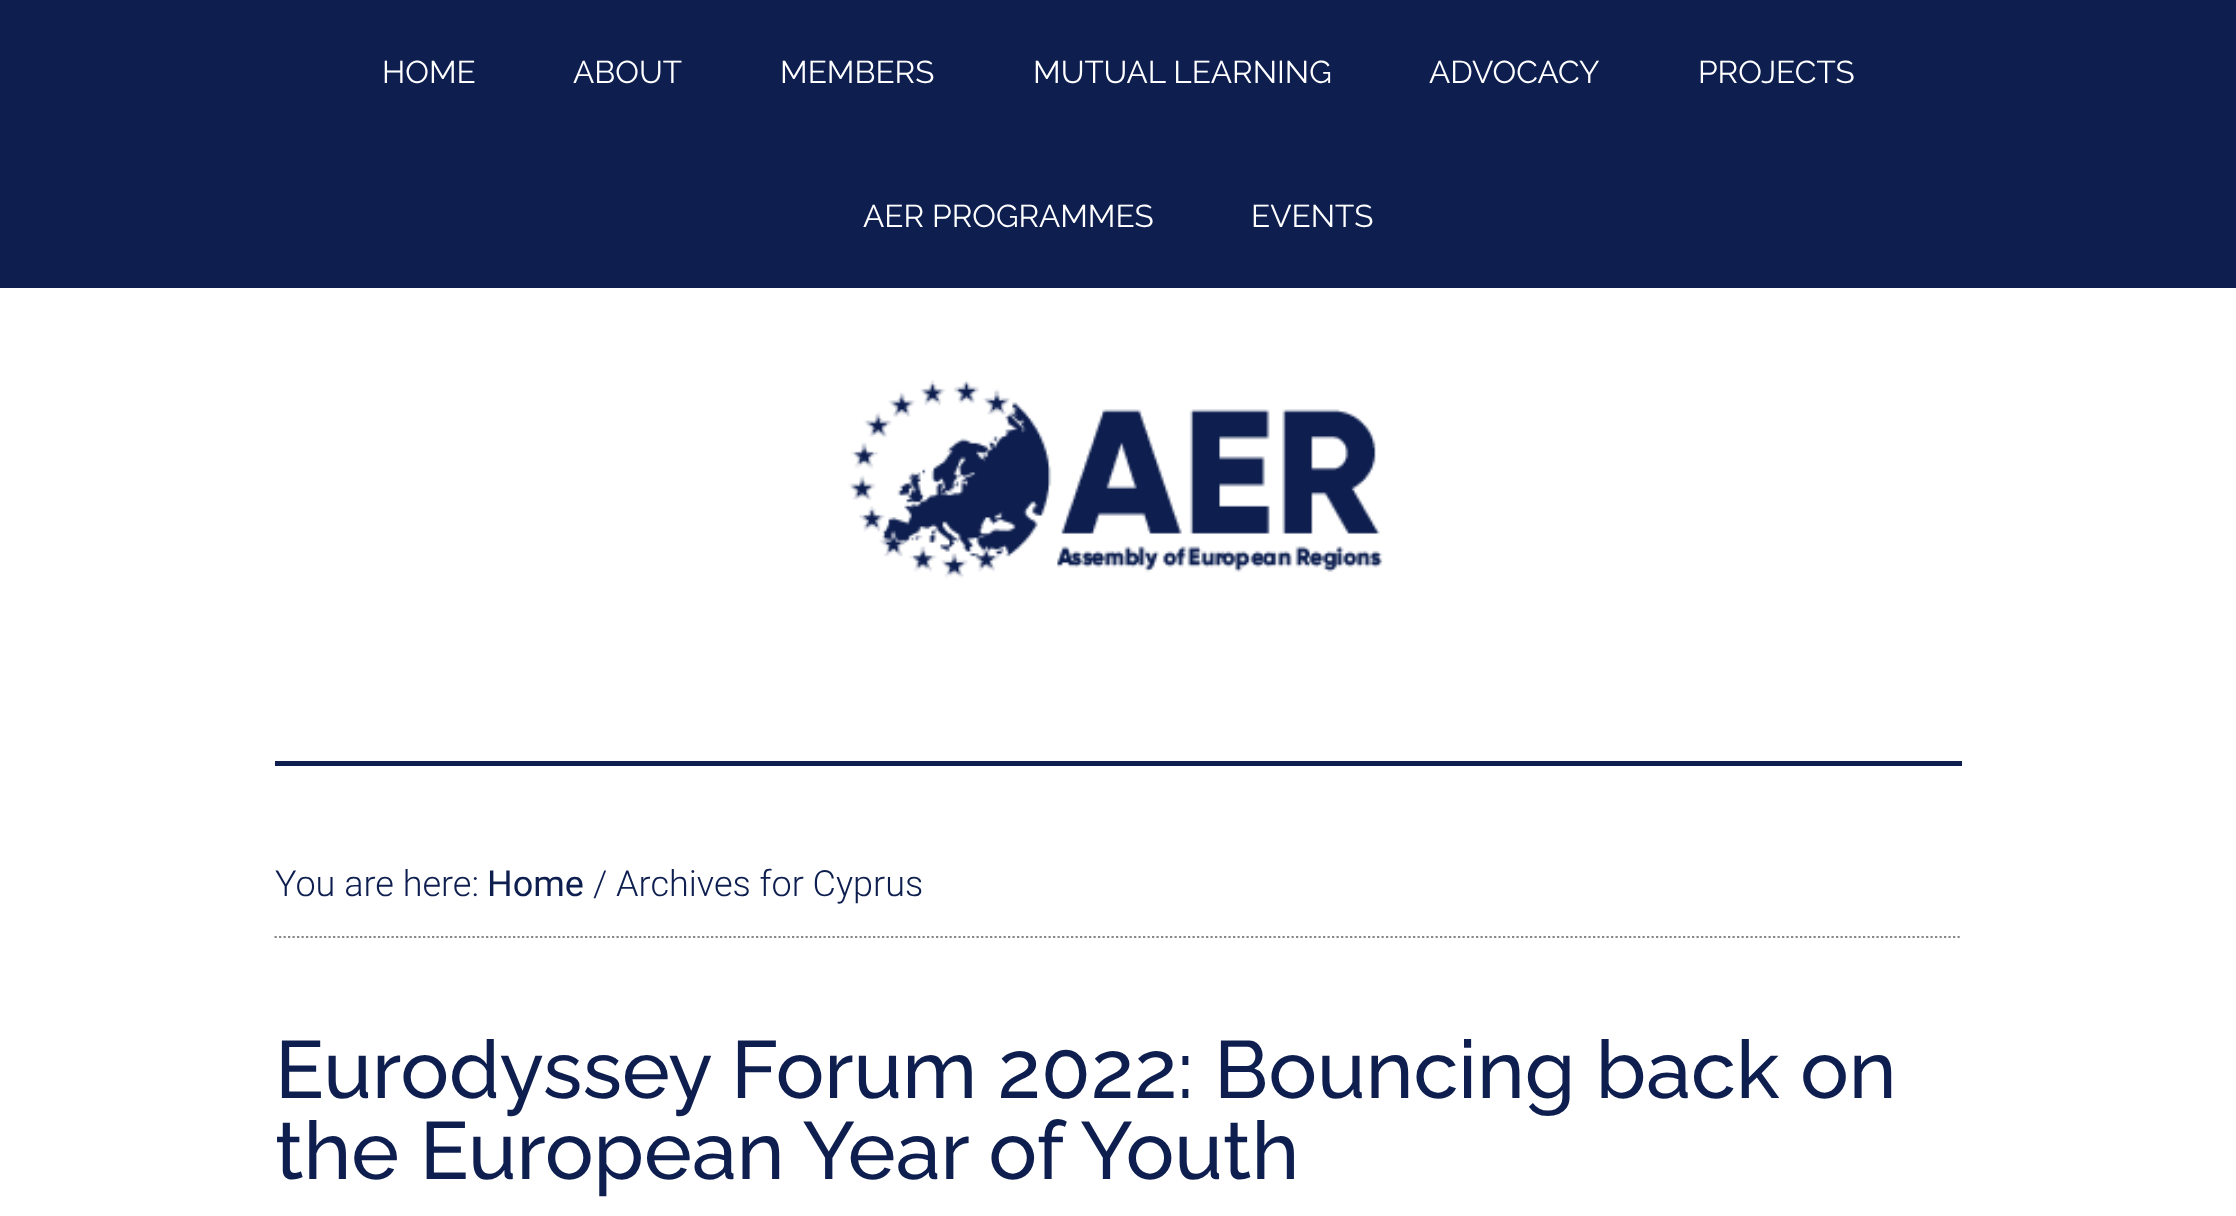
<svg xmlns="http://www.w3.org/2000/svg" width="2236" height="1216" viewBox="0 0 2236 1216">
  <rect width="100%" height="100%" fill="#fff"/>
  <path d="M0 0h2236v288H0z" fill="#0d1e4f"/>
  <path d="M275 761h1687v5H275z" fill="#0d1e4f"/>
  <image x="848" y="380" width="535" height="199" href="img/1.png"/>
  <path d="M274.5 937H1962" fill="none" stroke="#888" stroke-width="2.2" stroke-dasharray="2.25 2.25"/>
  <g font-family="Raleway" font-size="31.5" fill="#fff">
    <text x="382" y="83">HOME</text>
    <text x="573" y="83">ABOUT</text>
    <text x="780" y="83">MEMBERS</text>
    <text x="1033" y="83">MUTUAL LEARNING</text>
    <text x="1429" y="83">ADVOCACY</text>
    <text x="1698" y="83">PROJECTS</text>
    <text x="863" y="227">AER PROGRAMMES</text>
    <text x="1251" y="227">EVENTS</text>
  </g>
  <text x="275" y="896" font-family="Roboto" font-size="36" font-weight="300" fill="#0d1e4f">You are here:</text>
  <text x="487" y="896" font-family="Roboto" font-size="36" fill="#0d1e4f">Home</text>
  <text x="593" y="896" font-family="Roboto" font-size="36" font-weight="300" fill="#0d1e4f">/ Archives for Cyprus</text>
  <g font-family="Raleway" font-size="81" font-weight="500" fill="#0d1e4f">
    <text x="275" y="1098">Eurodyssey Forum 2022: Bouncing back on</text>
    <text x="275" y="1179">the European Year of Youth</text>
  </g>
</svg>
